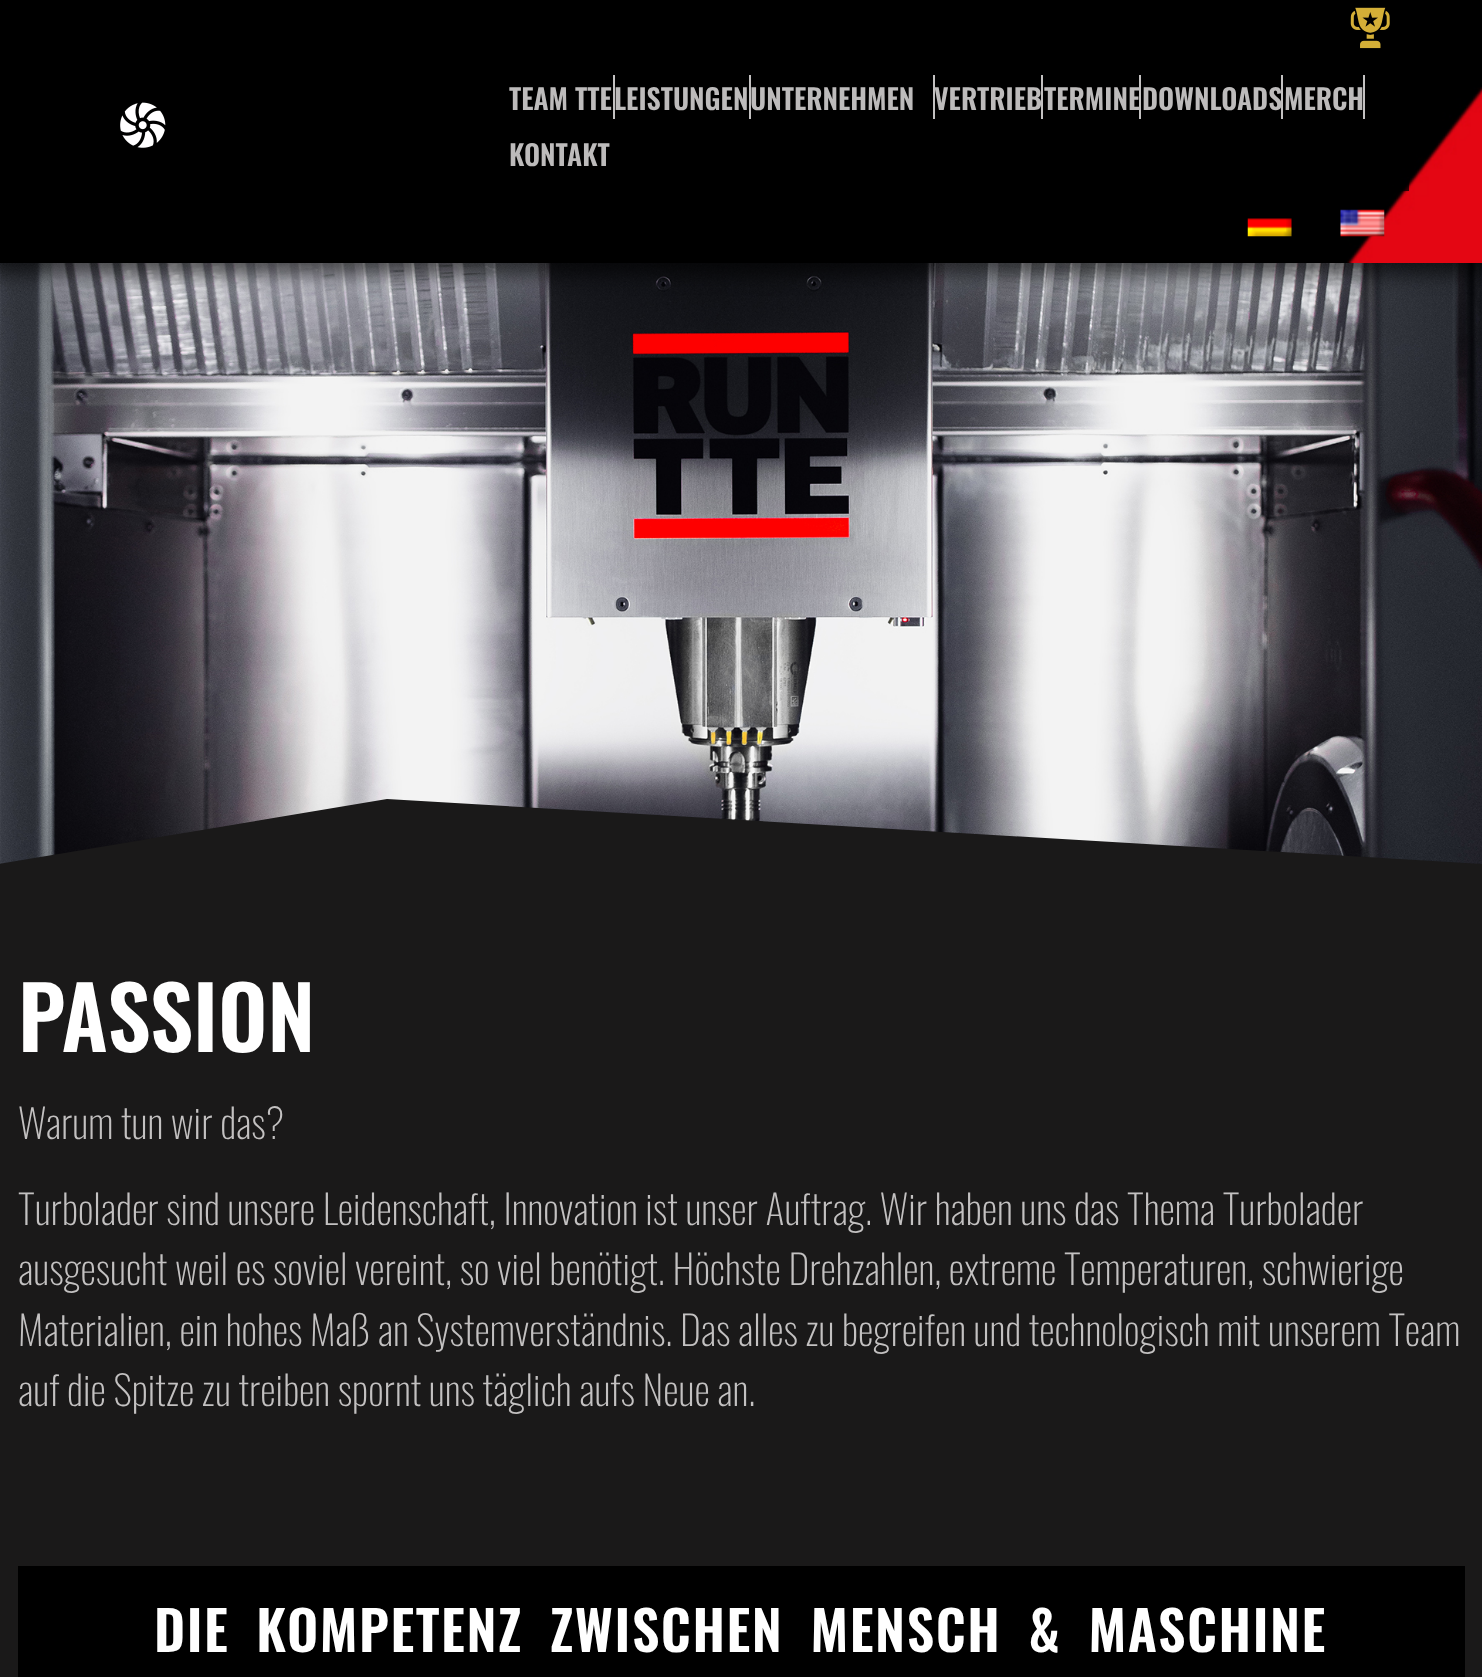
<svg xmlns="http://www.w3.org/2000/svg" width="1482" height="1677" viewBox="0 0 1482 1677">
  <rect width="100%" height="100%" fill="#1a1919"/>
  <image x="0" y="263" width="1482" height="601" href="img/6.png"/>
  <path d="M-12 -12h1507v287H-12z" fill="#00000096" filter="blur(9px)"/>
  <path d="M0 0h1482v263H0z" fill="#000"/>
  <image x="1347" y="87" width="135" height="176" href="img/1.png"/>
  <image x="120" y="102" width="46" height="46" href="img/2.png"/>
  <image x="1350" y="7" width="40" height="42" href="img/3.png"/>
  <path d="M1401 181h8v10H1401z" fill="#000000b3"/>
  <path d="M613 75h2v44H613z" fill="#c3c1c1"/>
  <path d="M749 75h2v44H749z" fill="#c3c1c1"/>
  <path d="M933 75h2v44H933z" fill="#c3c1c1"/>
  <path d="M1041 75h2v44H1041z" fill="#c3c1c1"/>
  <path d="M1139 75h2v44H1139z" fill="#c3c1c1"/>
  <path d="M1281 75h2v44H1281z" fill="#c3c1c1"/>
  <path d="M1363 75h2v44H1363z" fill="#c3c1c1"/>
  <image x="1247" y="218" width="45" height="19" href="img/4.png"/>
  <image x="1340" y="209" width="45" height="28" href="img/5.png"/>
  <path d="M387 799L-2 864V868H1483V864Z" fill="#1a1919"/>
  <path d="M18 1566h1447v111H18z" fill="#000"/>
  <g font-family="Oswald" font-size="28" font-weight="600" fill="#bdbbbb">
    <text x="509" y="110">TEAM TTE</text>
    <text x="614" y="110">LEISTUNGEN</text>
    <text x="750" y="110">UNTERNEHMEN</text>
    <text x="934" y="110">VERTRIEB</text>
    <text x="1044" y="110">TERMINE</text>
    <text x="1142" y="110">DOWNLOADS</text>
    <text x="1284" y="110">MERCH</text>
    <text x="509" y="166">KONTAKT</text>
  </g>
  <text x="18" y="1052" font-family="Oswald" font-size="86" font-weight="600" fill="#fff">PASSION</text>
  <g font-family="Oswald" font-size="40.25" font-weight="200" fill="#c3c1c1">
    <text x="18" y="1139">Warum tun wir das?</text>
    <text x="18" y="1225">Turbolader sind unsere Leidenschaft, Innovation ist unser Auftrag. Wir haben uns das Thema Turbolader</text>
    <text x="18" y="1285">ausgesucht weil es soviel vereint, so viel benötigt. Höchste Drehzahlen, extreme Temperaturen, schwierige</text>
    <text x="18" y="1346">Materialien, ein hohes Maß an Systemverständnis. Das alles zu begreifen und technologisch mit unserem Team</text>
    <text x="18" y="1406">auf die Spitze zu treiben spornt uns täglich aufs Neue an.</text>
  </g>
  <text x="154" y="1652" word-spacing="12" font-family="Oswald" font-size="54.25" font-weight="600" letter-spacing="1.55" fill="#fff">DIE KOMPETENZ ZWISCHEN MENSCH &amp; MASCHINE</text>
</svg>
